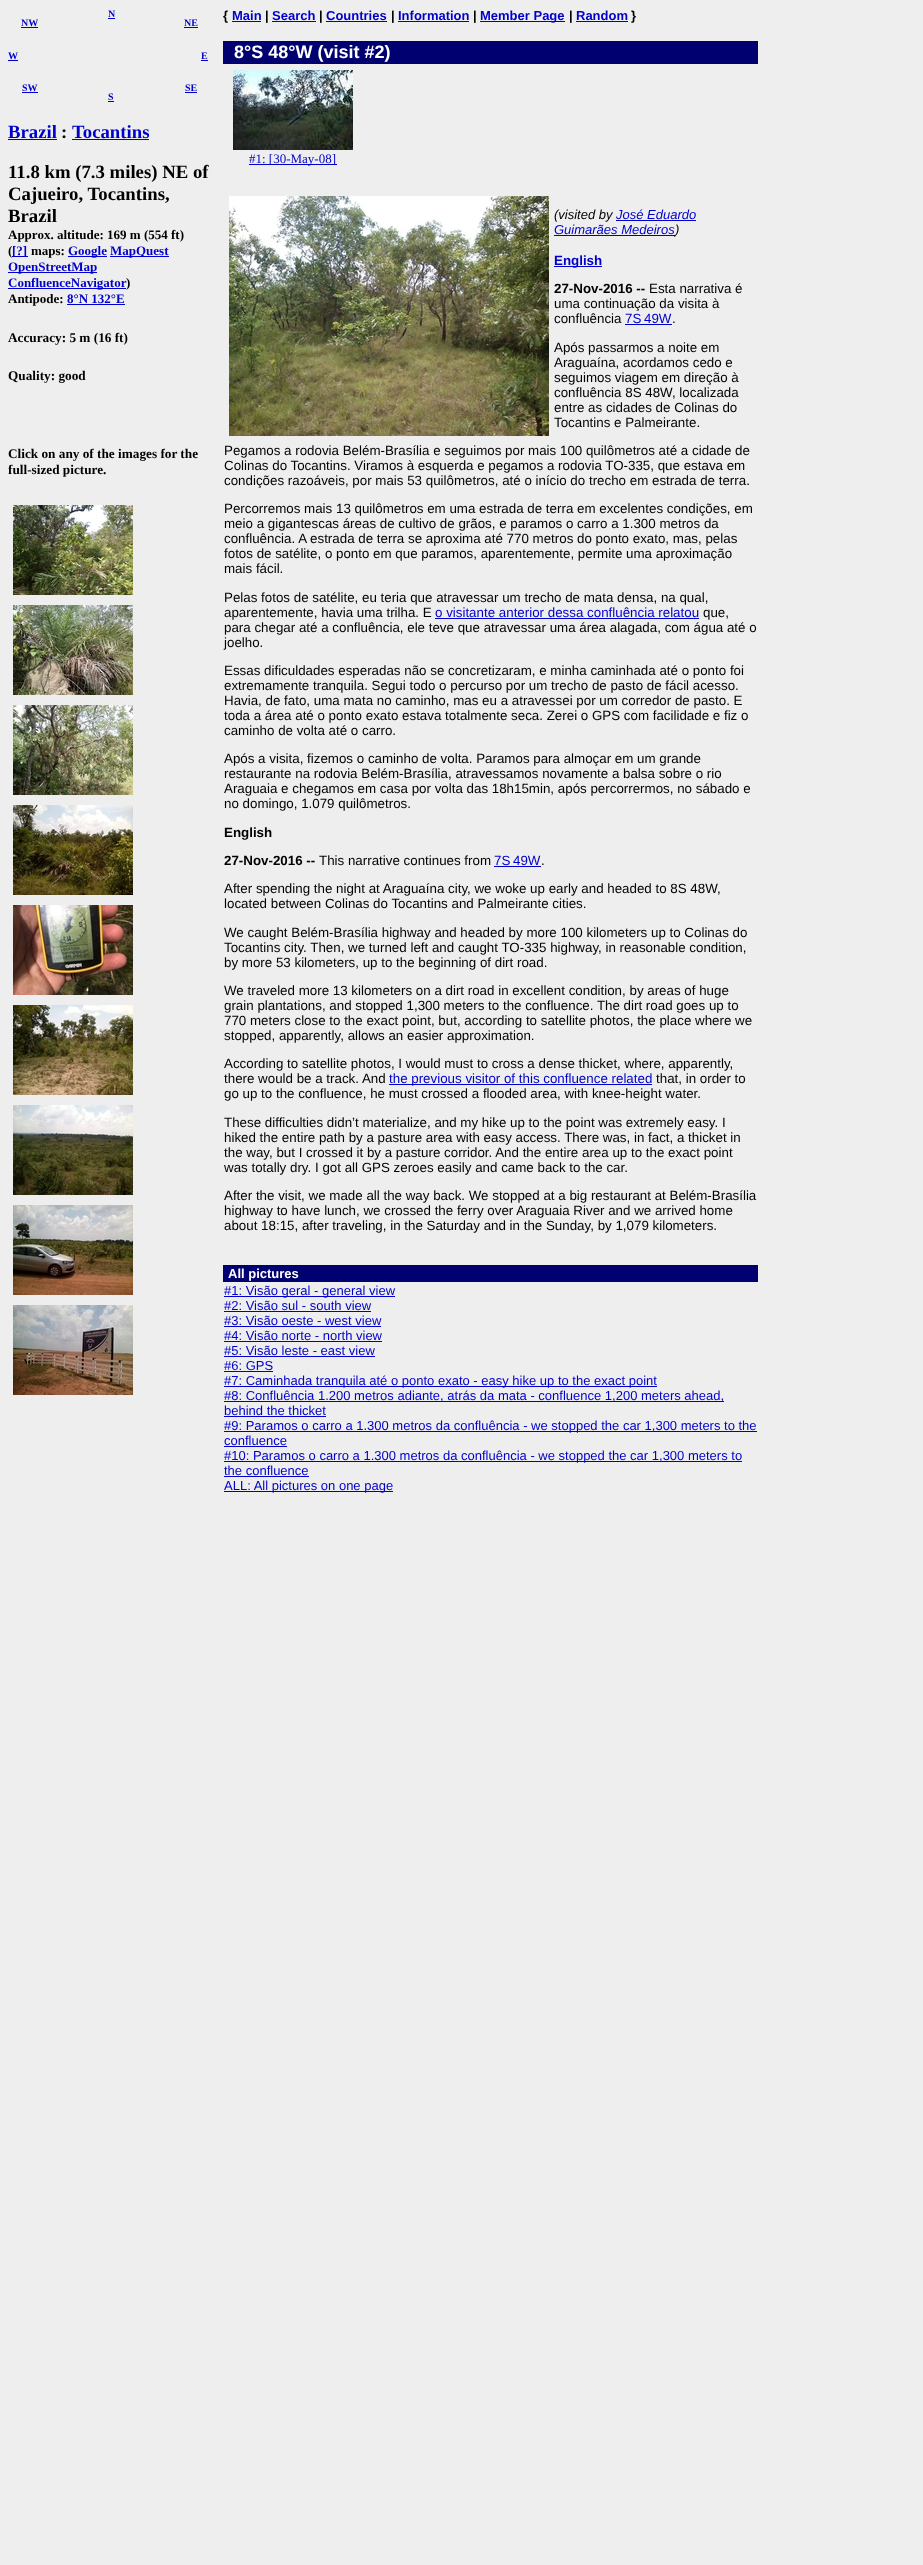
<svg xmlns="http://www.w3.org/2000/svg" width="923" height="2565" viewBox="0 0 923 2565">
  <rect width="100%" height="100%" fill="#eee"/>
  <path d="M8 60h10v1H8z" fill="#00c"/>
  <path d="M108 18h7v1H108z" fill="#00c"/>
  <path d="M21 27h17v1H21z" fill="#00c"/>
  <path d="M184 27h14v1H184z" fill="#00c"/>
  <path d="M22 92h16v1H22z" fill="#00c"/>
  <path d="M185 92h12v1H185z" fill="#00c"/>
  <path d="M108 101h6v1H108z" fill="#00c"/>
  <path d="M201 60h7v1H201z" fill="#00c"/>
  <path d="M8 139h49v1H8z" fill="#00c"/>
  <path d="M72 139h77v1H72z" fill="#00c"/>
  <path d="M12 256h16v1H12z" fill="#00c"/>
  <path d="M68 256h39v1H68z" fill="#00c"/>
  <path d="M110 256h59v1H110z" fill="#00c"/>
  <path d="M8 272h89v1H8z" fill="#00c"/>
  <path d="M8 288h118v1H8z" fill="#00c"/>
  <path d="M67 304h58v1H67z" fill="#00c"/>
  <image x="13" y="505" width="120" height="90" href="img/1.png"/>
  <image x="13" y="605" width="120" height="90" href="img/2.png"/>
  <image x="13" y="705" width="120" height="90" href="img/3.png"/>
  <image x="13" y="805" width="120" height="90" href="img/4.png"/>
  <image x="13" y="905" width="120" height="90" href="img/5.png"/>
  <image x="13" y="1005" width="120" height="90" href="img/6.png"/>
  <image x="13" y="1105" width="120" height="90" href="img/7.png"/>
  <image x="13" y="1205" width="120" height="90" href="img/8.png"/>
  <image x="13" y="1305" width="120" height="90" href="img/9.png"/>
  <path d="M232 21h29v1H232z" fill="#00c"/>
  <path d="M272 21h44v1H272z" fill="#00c"/>
  <path d="M326 21h61v1H326z" fill="#00c"/>
  <path d="M398 21h71v1H398z" fill="#00c"/>
  <path d="M480 21h85v1H480z" fill="#00c"/>
  <path d="M576 21h52v1H576z" fill="#00c"/>
  <path d="M223 41h535v23H223z" fill="#000070"/>
  <image x="233" y="70" width="120" height="80" href="img/10.png"/>
  <path d="M249 164h88v1H249z" fill="#00c"/>
  <image x="229" y="196" width="320" height="240" href="img/11.png"/>
  <path d="M616 220h80v1H616z" fill="#00c"/>
  <path d="M554 235h121v1H554z" fill="#00c"/>
  <path d="M554 266h48v1H554z" fill="#00c"/>
  <path d="M625 324h47v1H625z" fill="#00c"/>
  <path d="M435 618h264v1H435z" fill="#00c"/>
  <path d="M494 866h47v1H494z" fill="#00c"/>
  <path d="M389 1084h263v1H389z" fill="#00c"/>
  <path d="M223 1265h535v17H223z" fill="#000070"/>
  <path d="M224 1296h171v1H224z" fill="#00c"/>
  <path d="M224 1311h147v1H224z" fill="#00c"/>
  <path d="M224 1326h157v1H224z" fill="#00c"/>
  <path d="M224 1341h158v1H224z" fill="#00c"/>
  <path d="M224 1356h151v1H224z" fill="#00c"/>
  <path d="M224 1371h49v1H224z" fill="#00c"/>
  <path d="M224 1386h433v1H224z" fill="#00c"/>
  <path d="M224 1401h500v1H224z" fill="#00c"/>
  <path d="M224 1416h102v1H224z" fill="#00c"/>
  <path d="M224 1431h533v1H224z" fill="#00c"/>
  <path d="M224 1446h63v1H224z" fill="#00c"/>
  <path d="M224 1461h518v1H224z" fill="#00c"/>
  <path d="M224 1476h85v1H224z" fill="#00c"/>
  <path d="M224 1491h169v1H224z" fill="#00c"/>
  <g font-family="Liberation Serif" font-size="10" font-weight="bold" fill="#00c">
    <text x="8" y="59">W</text>
    <text x="108" y="17">N</text>
    <text x="21" y="26">NW</text>
    <text x="184" y="26">NE</text>
    <text x="22" y="91">SW</text>
    <text x="185" y="91">SE</text>
    <text x="108" y="100">S</text>
    <text x="201" y="59">E</text>
  </g>
  <text x="8" y="138" font-family="Liberation Serif" font-size="18.75" font-weight="bold" fill="#00c">Brazil</text>
  <text x="61" y="138" font-family="Liberation Serif" font-size="18.75" font-weight="bold" fill="#000">:</text>
  <text x="72" y="138" font-family="Liberation Serif" font-size="18.75" font-weight="bold" fill="#00c">Tocantins</text>
  <g font-family="Liberation Serif" font-size="18.75" font-weight="bold" fill="#000">
    <text x="8" y="178">11.8 km (7.3 miles) NE of</text>
    <text x="8" y="200">Cajueiro, Tocantins,</text>
    <text x="8" y="222">Brazil</text>
  </g>
  <g font-family="Liberation Serif" font-size="13" font-weight="bold" fill="#000">
    <text x="8" y="239">Approx. altitude: 169 m (554 ft)</text>
    <text x="8" y="255">(</text>
  </g>
  <text x="12" y="255" font-family="Liberation Serif" font-size="13" font-weight="bold" fill="#00c">[?]</text>
  <text x="31" y="255" font-family="Liberation Serif" font-size="13" font-weight="bold" fill="#000">maps:</text>
  <g font-family="Liberation Serif" font-size="13" font-weight="bold" fill="#00c">
    <text x="68" y="255">Google</text>
    <text x="110" y="255">MapQuest</text>
    <text x="8" y="271">OpenStreetMap</text>
    <text x="8" y="287">ConfluenceNavigator</text>
  </g>
  <g font-family="Liberation Serif" font-size="13" font-weight="bold" fill="#000">
    <text x="126" y="287">)</text>
    <text x="8" y="303">Antipode:</text>
  </g>
  <text x="67" y="303" font-family="Liberation Serif" font-size="13" font-weight="bold" fill="#00c">8°N 132°E</text>
  <g font-family="Liberation Serif" font-size="13.25" font-weight="bold" fill="#000">
    <text x="8" y="342">Accuracy: 5 m (16 ft)</text>
    <text x="8" y="380">Quality: good</text>
    <text x="8" y="458">Click on any of the images for the</text>
    <text x="8" y="474">full-sized picture.</text>
  </g>
  <text x="223" y="20" font-family="Liberation Sans" font-size="13" font-weight="bold" fill="#000">{</text>
  <text x="232" y="20" font-family="Liberation Sans" font-size="13" font-weight="bold" fill="#00c">Main</text>
  <text x="265" y="20" font-family="Liberation Sans" font-size="13" font-weight="bold" fill="#000">|</text>
  <text x="272" y="20" font-family="Liberation Sans" font-size="13" font-weight="bold" fill="#00c">Search</text>
  <text x="319" y="20" font-family="Liberation Sans" font-size="13" font-weight="bold" fill="#000">|</text>
  <text x="326" y="20" font-family="Liberation Sans" font-size="13" font-weight="bold" fill="#00c">Countries</text>
  <text x="391" y="20" font-family="Liberation Sans" font-size="13" font-weight="bold" fill="#000">|</text>
  <text x="398" y="20" font-family="Liberation Sans" font-size="13" font-weight="bold" fill="#00c">Information</text>
  <text x="473" y="20" font-family="Liberation Sans" font-size="13" font-weight="bold" fill="#000">|</text>
  <text x="480" y="20" font-family="Liberation Sans" font-size="13" font-weight="bold" fill="#00c">Member Page</text>
  <text x="569" y="20" font-family="Liberation Sans" font-size="13" font-weight="bold" fill="#000">|</text>
  <text x="576" y="20" font-family="Liberation Sans" font-size="13" font-weight="bold" fill="#00c">Random</text>
  <text x="631" y="20" font-family="Liberation Sans" font-size="13" font-weight="bold" fill="#000">}</text>
  <text x="234" y="58" font-family="Liberation Sans" font-size="18" font-weight="bold" fill="#fff">8°S 48°W (visit #2)</text>
  <text x="249" y="163" font-family="Liberation Serif" font-size="13" fill="#00c">#1: [30-May-08]</text>
  <text x="554" y="219" font-family="Liberation Sans" font-size="13" font-style="italic" fill="#000">(visited by</text>
  <g font-family="Liberation Sans" font-size="13" font-style="italic" fill="#00c">
    <text x="616" y="219">José Eduardo</text>
    <text x="554" y="234">Guimarães Medeiros</text>
  </g>
  <text x="675" y="234" font-family="Liberation Sans" font-size="13" font-style="italic" fill="#000">)</text>
  <text x="554" y="265" font-family="Liberation Sans" font-size="13.35" font-weight="bold" fill="#00c">English</text>
  <text x="554" y="293" font-family="Liberation Sans" font-size="13.35" font-weight="bold" fill="#000">27-Nov-2016 --</text>
  <g font-family="Liberation Sans" font-size="13.35" fill="#000">
    <text x="649" y="293">Esta narrativa é</text>
    <text x="554" y="308">uma continuação da visita à</text>
    <text x="554" y="323">confluência</text>
  </g>
  <text x="625" y="323" word-spacing="-1" font-family="Liberation Sans" font-size="13.35" fill="#00c">7S 49W</text>
  <g font-family="Liberation Sans" font-size="13.35" fill="#000">
    <text x="672" y="323">.</text>
    <text x="554" y="352">Após passarmos a noite em</text>
    <text x="554" y="367">Araguaína, acordamos cedo e</text>
    <text x="554" y="382">seguimos viagem em direção à</text>
    <text x="554" y="397">confluência 8S 48W, localizada</text>
    <text x="554" y="412">entre as cidades de Colinas do</text>
    <text x="554" y="427">Tocantins e Palmeirante.</text>
    <text x="224" y="455">Pegamos a rodovia Belém-Brasília e seguimos por mais 100 quilômetros até a cidade de</text>
    <text x="224" y="470">Colinas do Tocantins. Viramos à esquerda e pegamos a rodovia TO-335, que estava em</text>
    <text x="224" y="485">condições razoáveis, por mais 53 quilômetros, até o início do trecho em estrada de terra.</text>
    <text x="224" y="513">Percorremos mais 13 quilômetros em uma estrada de terra em excelentes condições, em</text>
    <text x="224" y="528">meio a gigantescas áreas de cultivo de grãos, e paramos o carro a 1.300 metros da</text>
    <text x="224" y="543">confluência. A estrada de terra se aproxima até 770 metros do ponto exato, mas, pelas</text>
    <text x="224" y="558">fotos de satélite, o ponto em que paramos, aparentemente, permite uma aproximação</text>
    <text x="224" y="573">mais fácil.</text>
    <text x="224" y="602">Pelas fotos de satélite, eu teria que atravessar um trecho de mata densa, na qual,</text>
    <text x="224" y="617">aparentemente, havia uma trilha. E</text>
  </g>
  <text x="435" y="617" font-family="Liberation Sans" font-size="13.35" fill="#00c">o visitante anterior dessa confluência relatou</text>
  <g font-family="Liberation Sans" font-size="13.35" fill="#000">
    <text x="703" y="617">que,</text>
    <text x="224" y="632">para chegar até a confluência, ele teve que atravessar uma área alagada, com água até o</text>
    <text x="224" y="647">joelho.</text>
    <text x="224" y="675">Essas dificuldades esperadas não se concretizaram, e minha caminhada até o ponto foi</text>
    <text x="224" y="690">extremamente tranquila. Segui todo o percurso por um trecho de pasto de fácil acesso.</text>
    <text x="224" y="705">Havia, de fato, uma mata no caminho, mas eu a atravessei por um corredor de pasto. E</text>
    <text x="224" y="720">toda a área até o ponto exato estava totalmente seca. Zerei o GPS com facilidade e fiz o</text>
    <text x="224" y="735">caminho de volta até o carro.</text>
    <text x="224" y="763">Após a visita, fizemos o caminho de volta. Paramos para almoçar em um grande</text>
    <text x="224" y="778">restaurante na rodovia Belém-Brasília, atravessamos novamente a balsa sobre o rio</text>
    <text x="224" y="793">Araguaia e chegamos em casa por volta das 18h15min, após percorrermos, no sábado e</text>
    <text x="224" y="808">no domingo, 1.079 quilômetros.</text>
  </g>
  <g font-family="Liberation Sans" font-size="13.35" font-weight="bold" fill="#000">
    <text x="224" y="837">English</text>
    <text x="224" y="865">27-Nov-2016 --</text>
  </g>
  <text x="319" y="865" font-family="Liberation Sans" font-size="13.35" fill="#000">This narrative continues from</text>
  <text x="494" y="865" word-spacing="-1" font-family="Liberation Sans" font-size="13.35" fill="#00c">7S 49W</text>
  <g font-family="Liberation Sans" font-size="13.35" fill="#000">
    <text x="541" y="865">.</text>
    <text x="224" y="893">After spending the night at Araguaína city, we woke up early and headed to 8S 48W,</text>
    <text x="224" y="908">located between Colinas do Tocantins and Palmeirante cities.</text>
    <text x="224" y="937">We caught Belém-Brasília highway and headed by more 100 kilometers up to Colinas do</text>
    <text x="224" y="952">Tocantins city. Then, we turned left and caught TO-335 highway, in reasonable condition,</text>
    <text x="224" y="967">by more 53 kilometers, up to the beginning of dirt road.</text>
    <text x="224" y="995">We traveled more 13 kilometers on a dirt road in excellent condition, by areas of huge</text>
    <text x="224" y="1010">grain plantations, and stopped 1,300 meters to the confluence. The dirt road goes up to</text>
    <text x="224" y="1025">770 meters close to the exact point, but, according to satellite photos, the place where we</text>
    <text x="224" y="1040">stopped, apparently, allows an easier approximation.</text>
    <text x="224" y="1068">According to satellite photos, I would must to cross a dense thicket, where, apparently,</text>
    <text x="224" y="1083">there would be a track. And</text>
  </g>
  <text x="389" y="1083" font-family="Liberation Sans" font-size="13.35" fill="#00c">the previous visitor of this confluence related</text>
  <g font-family="Liberation Sans" font-size="13.35" fill="#000">
    <text x="656" y="1083">that, in order to</text>
    <text x="224" y="1098">go up to the confluence, he must crossed a flooded area, with knee-height water.</text>
    <text x="224" y="1127">These difficulties didn’t materialize, and my hike up to the point was extremely easy. I</text>
    <text x="224" y="1142">hiked the entire path by a pasture area with easy access. There was, in fact, a thicket in</text>
    <text x="224" y="1157">the way, but I crossed it by a pasture corridor. And the entire area up to the exact point</text>
    <text x="224" y="1172">was totally dry. I got all GPS zeroes easily and came back to the car.</text>
    <text x="224" y="1200">After the visit, we made all the way back. We stopped at a big restaurant at Belém-Brasília</text>
    <text x="224" y="1215">highway to have lunch, we crossed the ferry over Araguaia River and we arrived home</text>
    <text x="224" y="1230">about 18:15, after traveling, in the Saturday and in the Sunday, by 1,079 kilometers.</text>
  </g>
  <text x="228" y="1278" font-family="Liberation Sans" font-size="13" font-weight="bold" fill="#fff">All pictures</text>
  <g font-family="Liberation Sans" font-size="13" fill="#00c">
    <text x="224" y="1295">#1: Visão geral - general view</text>
    <text x="224" y="1310">#2: Visão sul - south view</text>
    <text x="224" y="1325">#3: Visão oeste - west view</text>
    <text x="224" y="1340">#4: Visão norte - north view</text>
    <text x="224" y="1355">#5: Visão leste - east view</text>
    <text x="224" y="1370">#6: GPS</text>
    <text x="224" y="1385">#7: Caminhada tranquila até o ponto exato - easy hike up to the exact point</text>
    <text x="224" y="1400">#8: Confluência 1.200 metros adiante, atrás da mata - confluence 1,200 meters ahead,</text>
    <text x="224" y="1415">behind the thicket</text>
    <text x="224" y="1430">#9: Paramos o carro a 1.300 metros da confluência - we stopped the car 1,300 meters to the</text>
    <text x="224" y="1445">confluence</text>
    <text x="224" y="1460">#10: Paramos o carro a 1.300 metros da confluência - we stopped the car 1,300 meters to</text>
    <text x="224" y="1475">the confluence</text>
    <text x="224" y="1490">ALL: All pictures on one page</text>
  </g>
</svg>
